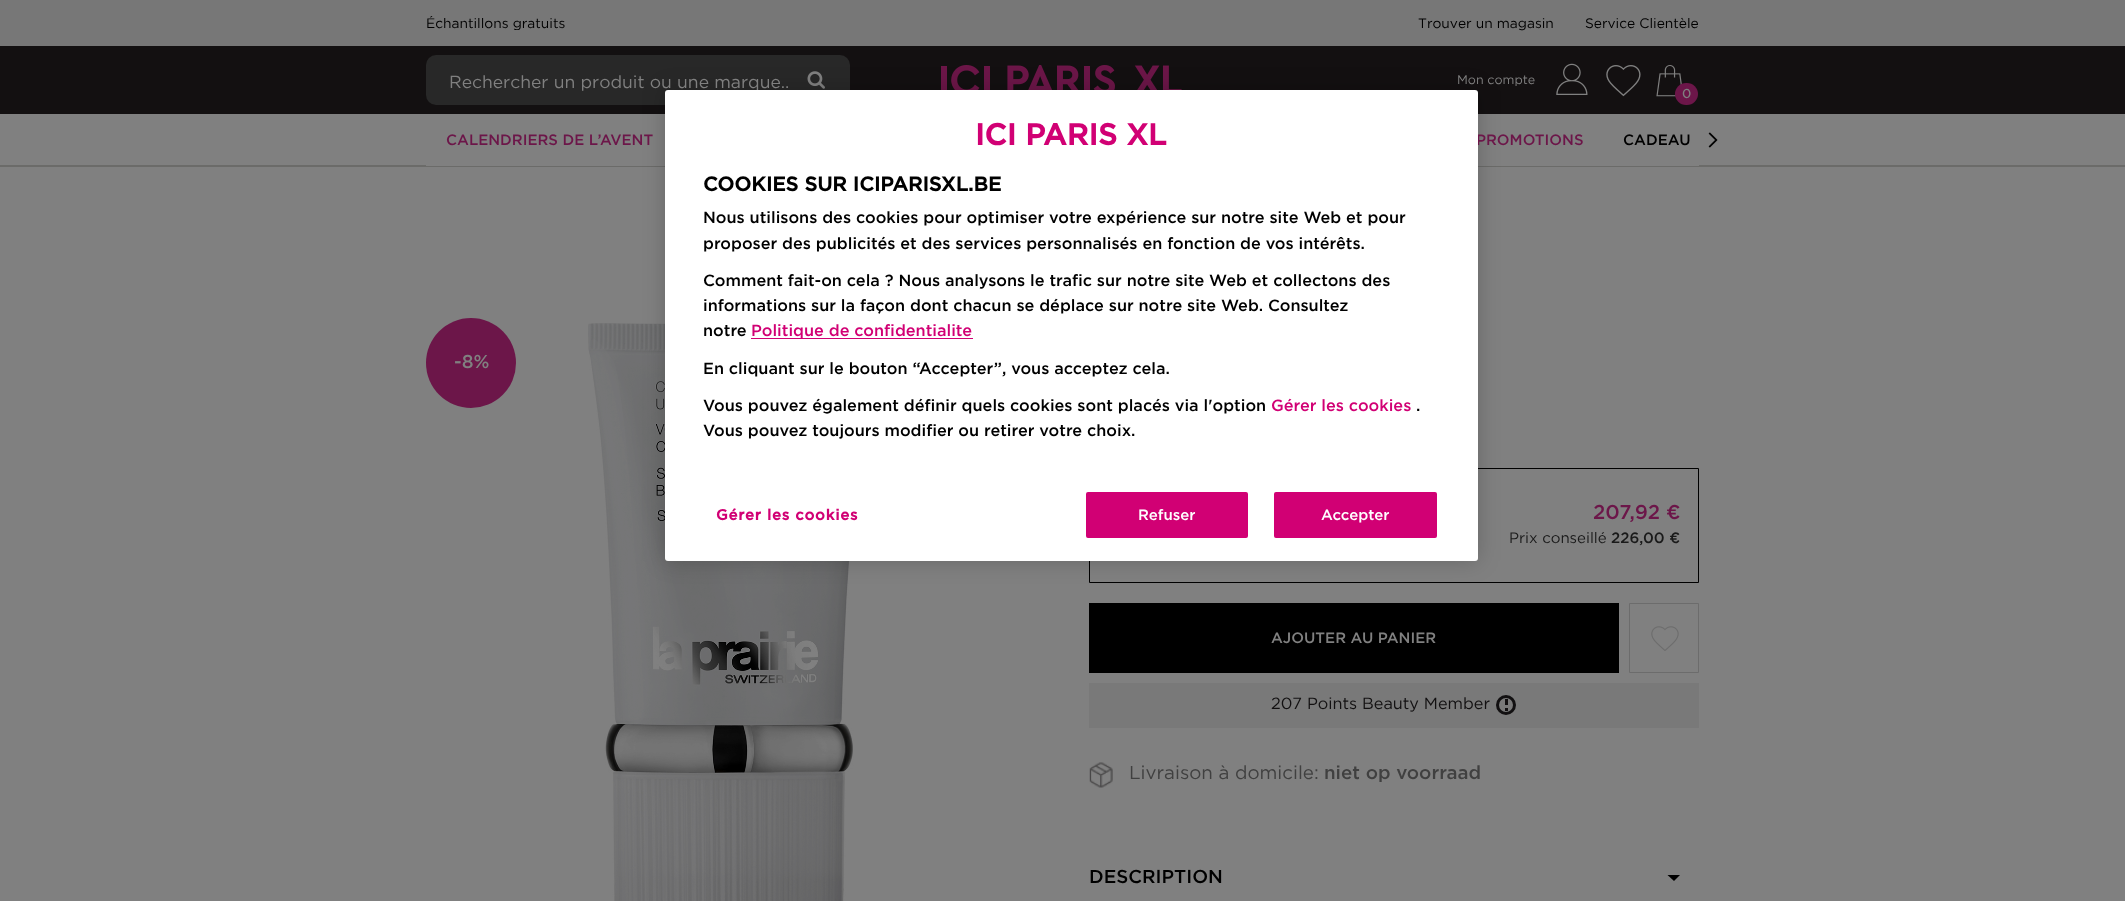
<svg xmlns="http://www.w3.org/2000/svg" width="2125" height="901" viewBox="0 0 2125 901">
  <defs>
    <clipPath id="clip1"><path d="M426 16h637v14H426z"/></clipPath>
  </defs>
  <rect width="100%" height="100%" fill="#808080"/>
  <path d="M0 0h2125v46H0z" fill="#777"/>
  <path d="M0 46h2125v68H0z" fill="#131011"/>
  <rect x="426" y="55" width="424" height="50" rx="10" fill="#282828"/>
  <image x="807" y="71" width="18" height="18" href="img/1.png"/>
  <image x="941" y="65" width="241" height="25" href="img/2.png"/>
  <image x="1556" y="63" width="32" height="32" href="img/3.png"/>
  <image x="1606" y="65" width="35" height="32" href="img/4.png"/>
  <image x="1656" y="65" width="26" height="32" href="img/5.png"/>
  <rect x="1675" y="83" width="23" height="22" rx="11" fill="#6c1649"/>
  <path d="M0 165h2125v2H0z" fill="#6b6b69"/>
  <path d="M426 165h1273v1H426z" fill="#808080"/>
  <image x="1708" y="132" width="10" height="16" href="img/6.png"/>
  <circle cx="471" cy="363" r="45" fill="#6c1649"/>
  <image x="588" y="323" width="284" height="578" href="img/7.png"/>
  <path d="M1089.5 468.5h609v114H1089.5z" fill="none" stroke="#000"/>
  <path d="M1089 603h530v70H1089z" fill="#000"/>
  <path d="M1629.5 603.5h69v69H1629.5z" fill="none" stroke="#6c6c6c"/>
  <image x="1651" y="626" width="28" height="25" href="img/8.png"/>
  <path d="M1089 683h610v45H1089z" fill="#797979"/>
  <circle cx="1506" cy="705" r="8.5" fill="none" stroke="#121011" stroke-width="3"/>
  <path d="M1505 699h3v6H1505z" fill="#121011"/>
  <path d="M1505 708h3v3H1505z" fill="#121011"/>
  <image x="1089" y="762" width="24" height="26" href="img/9.png"/>
  <path d="M1667.5 875H1680L1674 881Z" fill="#000"/>
  <rect x="665" y="90" width="813" height="471" rx="3" fill="#00000033" filter="blur(11px)"/>
  <g clip-path="url(#clip1)">
    <text x="426" y="28" font-family="Gotham" font-size="13.75" fill="#000">Échantillons gratuits</text>
  </g>
  <g font-family="Gotham" font-size="13.75" fill="#000">
    <text x="1418" y="28">Trouver un magasin</text>
    <text x="1585" y="28">Service Clientèle</text>
  </g>
  <text x="449" y="88" font-family="Gotham" font-size="17.5" fill="#808080">Rechercher un produit ou une marque..</text>
  <text x="1457" y="84" font-family="Gotham" font-size="12.5" fill="#808080">Mon compte</text>
  <text x="1682" y="98" font-family="Gotham" font-size="12.5" font-weight="bold" fill="#808080">0</text>
  <g font-family="Gotham" font-size="15" font-weight="500" fill="#6c1649">
    <text x="446" y="145">CALENDRIERS DE L’AVENT</text>
    <text x="1476" y="145">PROMOTIONS</text>
  </g>
  <text x="1623" y="145" font-family="Gotham" font-size="15" font-weight="500" fill="#000">CADEAU</text>
  <text x="454" y="368" font-family="Gotham" font-size="18.75" font-weight="500" fill="#808080">-8%</text>
  <text x="1593" y="519" font-family="Gotham" font-size="20" font-weight="500" fill="#6c1649">207,92 €</text>
  <text x="1509" y="543" font-family="Gotham" font-size="15" fill="#1a1a1a">Prix conseillé</text>
  <text x="1611" y="543" font-family="Gotham" font-size="15" font-weight="500" fill="#1a1a1a">226,00 €</text>
  <text x="1271" y="643" font-family="Gotham" font-size="15" font-weight="500" fill="#808080">AJOUTER AU PANIER</text>
  <text x="1271" y="709" font-family="Gotham" font-size="16.25" fill="#121011">207 Points Beauty Member</text>
  <text x="1129" y="779" font-family="Gotham" font-size="18.75" fill="#404040">Livraison à domicile:</text>
  <text x="1324" y="779" font-family="Gotham" font-size="18.75" font-weight="500" fill="#404040">niet op voorraad</text>
  <text x="1089" y="883" font-family="Gotham" font-size="18.75" font-weight="500" fill="#000">DESCRIPTION</text>
  <rect x="665" y="90" width="813" height="471" rx="3" fill="#fff"/>
  <text x="975" y="145" font-family="'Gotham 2'" font-size="30" font-weight="bold" fill="#d10074">ICI PARIS XL</text>
  <text x="703" y="191" font-family="'Gotham 2'" font-size="20" font-weight="bold" fill="#000">COOKIES SUR ICIPARISXL.BE</text>
  <g font-family="Gotham" font-size="16.25" font-weight="500" fill="#000">
    <text x="703" y="223">Nous utilisons des cookies pour optimiser votre expérience sur notre site Web et pour</text>
    <text x="703" y="249">proposer des publicités et des services personnalisés en fonction de vos intérêts.</text>
    <text x="703" y="286">Comment fait-on cela ? Nous analysons le trafic sur notre site Web et collectons des</text>
    <text x="703" y="311">informations sur la façon dont chacun se déplace sur notre site Web. Consultez</text>
    <text x="703" y="336">notre</text>
  </g>
  <path d="M751 338h222v1H751z" fill="#d10074"/>
  <text x="751" y="336" font-family="Gotham" font-size="16.25" font-weight="500" fill="#d10074">Politique de confidentialite</text>
  <g font-family="Gotham" font-size="16.25" font-weight="500" fill="#000">
    <text x="703" y="374">En cliquant sur le bouton “Accepter”, vous acceptez cela.</text>
    <text x="703" y="411">Vous pouvez également définir quels cookies sont placés via l'option</text>
  </g>
  <text x="1271" y="411" font-family="Gotham" font-size="16.25" font-weight="500" fill="#d10074">Gérer les cookies</text>
  <g font-family="Gotham" font-size="16.25" font-weight="500" fill="#000">
    <text x="1416" y="411">.</text>
    <text x="703" y="436">Vous pouvez toujours modifier ou retirer votre choix.</text>
  </g>
  <text x="716" y="520" font-family="'Gotham 2'" font-size="15" font-weight="bold" letter-spacing="0.75" fill="#d10074">Gérer les cookies</text>
  <rect x="1084.5" y="490.5" width="165" height="49" rx="3.5" fill="#d10074" stroke="#fff" stroke-width="3"/>
  <text x="1138" y="520" font-family="Gotham" font-size="15" font-weight="500" fill="#fff">Refuser</text>
  <rect x="1272.5" y="490.5" width="166" height="49" rx="3.5" fill="#d10074" stroke="#fff" stroke-width="3"/>
  <text x="1321" y="520" font-family="Gotham" font-size="15" font-weight="500" fill="#fff">Accepter</text>
</svg>
